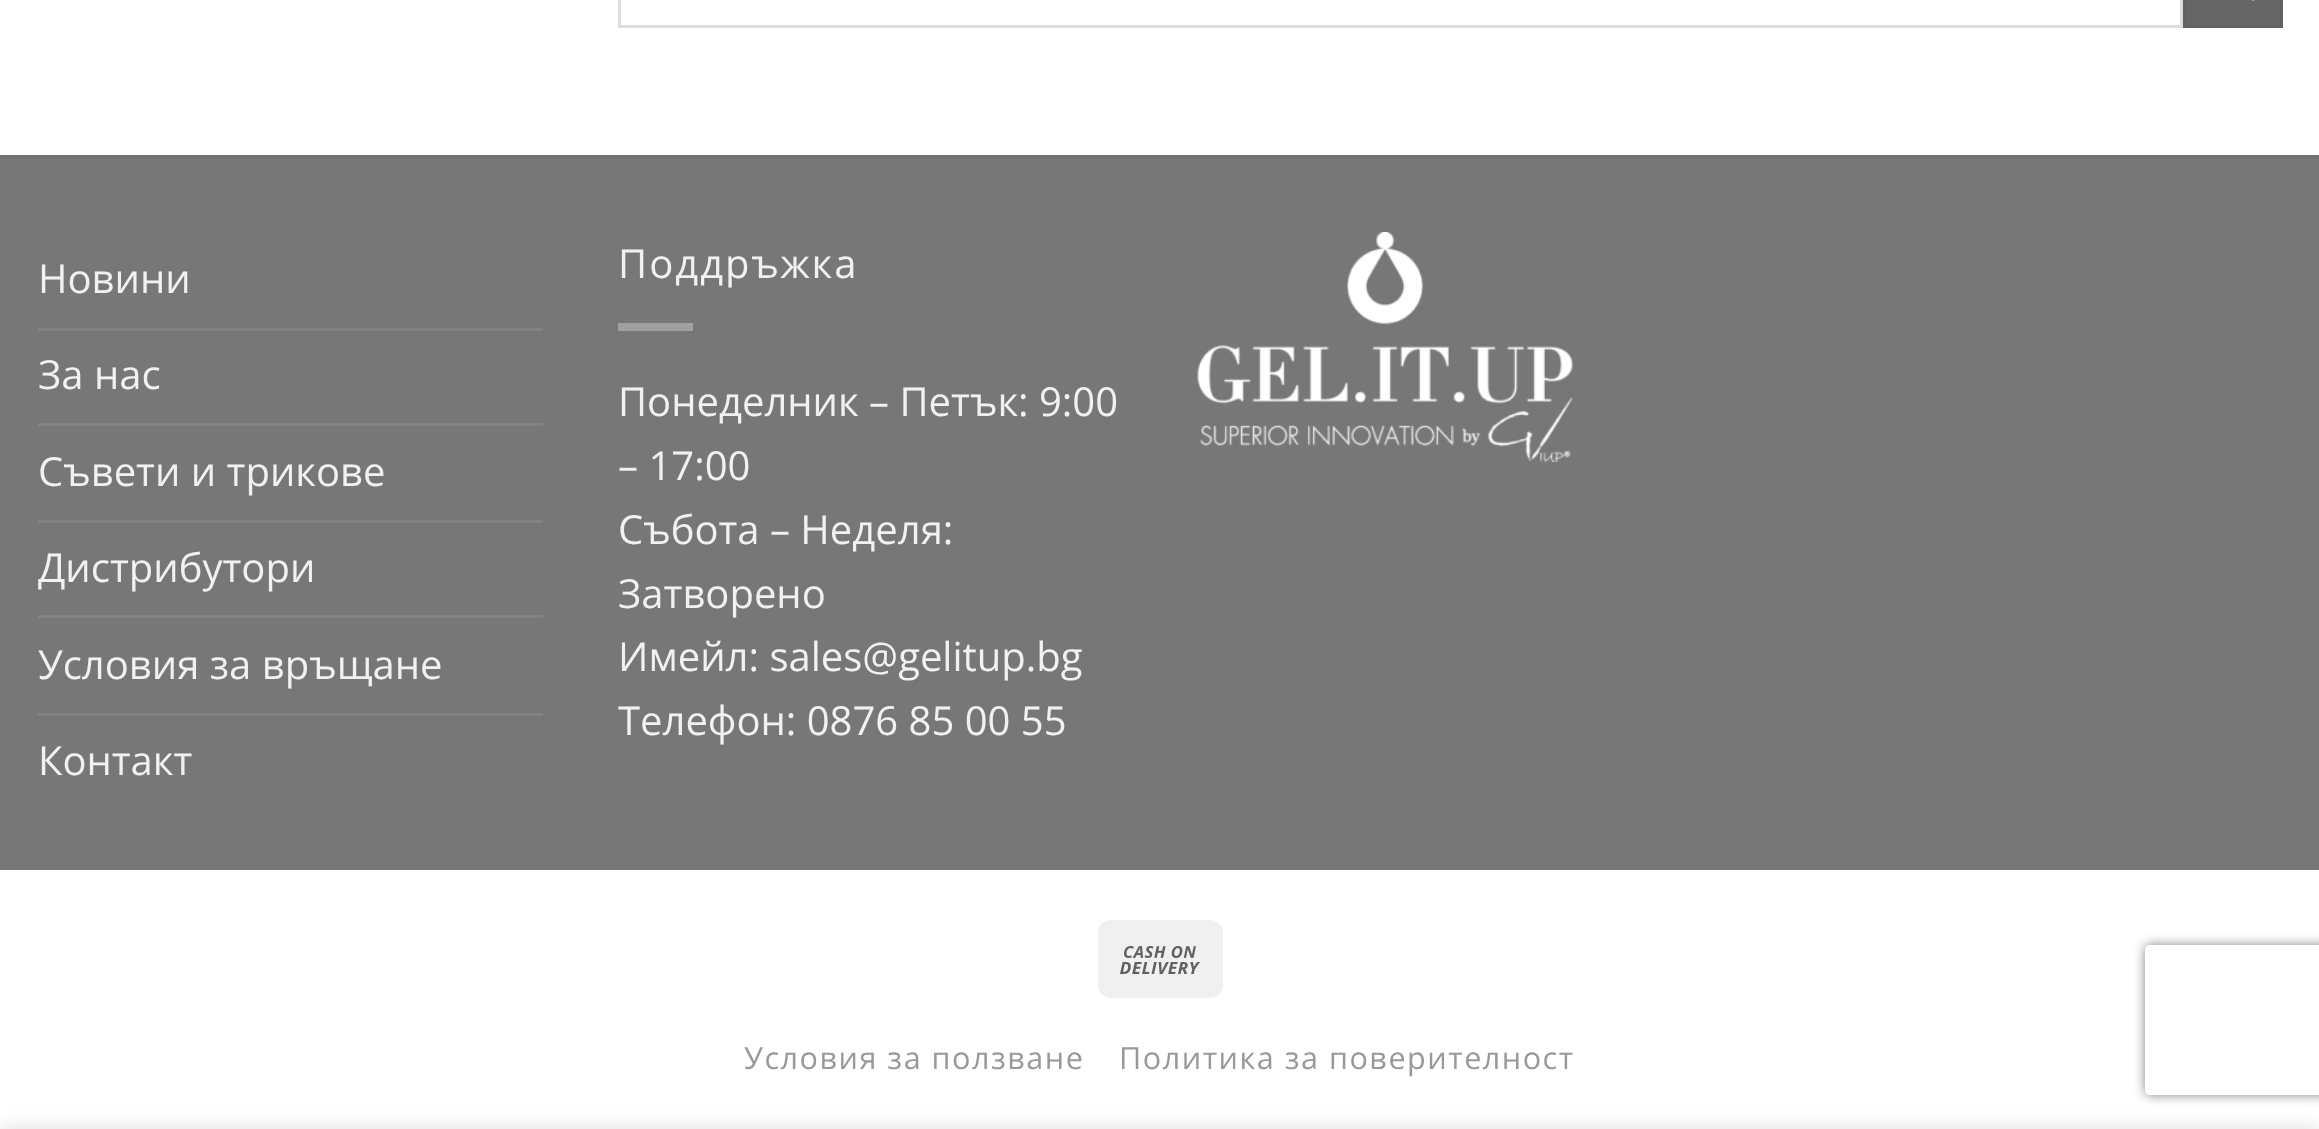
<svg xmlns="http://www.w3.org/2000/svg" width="2319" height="1129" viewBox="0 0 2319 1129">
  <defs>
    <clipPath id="clip1"><path d="M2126 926H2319V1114H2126ZM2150 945H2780C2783 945 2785 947 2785 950V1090C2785 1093 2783 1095 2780 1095H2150C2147 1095 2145 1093 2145 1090V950C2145 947 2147 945 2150 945Z" clip-rule="evenodd"/></clipPath>
  </defs>
  <rect width="100%" height="100%" fill="#fff"/>
  <path d="M619.5 -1.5h1562v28H619.5z" fill="none" stroke="#ddd" stroke-width="3"/>
  <path d="M2184.5 -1.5h97v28H2184.5z" fill="#666" stroke="#616161" stroke-width="3"/>
  <image x="2251" y="0" width="4" height="1" href="img/1.png"/>
  <path d="M0 158h2319v712H0z" fill="#777"/>
  <path d="M0 155h2319v3H0z" fill="#717171"/>
  <path d="M38 328h505v3H38z" fill="#828282"/>
  <path d="M38 423h505v3H38z" fill="#828282"/>
  <path d="M38 520h505v3H38z" fill="#828282"/>
  <path d="M38 615h505v3H38z" fill="#828282"/>
  <path d="M38 713h505v3H38z" fill="#828282"/>
  <path d="M618 323h75v8H618z" fill="#a0a0a0"/>
  <image x="1197" y="232" width="376" height="230" href="img/2.png"/>
  <rect x="1098" y="920" width="125" height="78" rx="13" fill="#f0f0f0"/>
  <image x="1120" y="946" width="80" height="28" href="img/3.png"/>
  <g clip-path="url(#clip1)">
    <rect x="2145" y="945" width="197" height="150" rx="5" fill="#808080" filter="blur(6px)"/>
  </g>
  <path d="M0 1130h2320v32H0z" fill="#00000024" filter="blur(11px)"/>
  <g font-family="Open Sans" font-size="40" fill="#f1f1f1">
    <text x="38" y="293">Новини</text>
    <text x="38" y="389">За нас</text>
    <text x="38" y="486">Съвети и трикове</text>
    <text x="38" y="582">Дистрибутори</text>
    <text x="38" y="679">Условия за връщане</text>
    <text x="38" y="775">Контакт</text>
  </g>
  <text x="618" y="278" font-family="'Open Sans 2'" font-size="40" letter-spacing="2" fill="#f1f1f1">Поддръжка</text>
  <g font-family="Open Sans" font-size="40" fill="#f1f1f1">
    <text x="618" y="416">Понеделник – Петък: 9:00</text>
    <text x="618" y="480">– 17:00</text>
    <text x="618" y="544">Събота – Неделя:</text>
    <text x="618" y="608">Затворено</text>
    <text x="618" y="671">Имейл: sales@gelitup.bg</text>
    <text x="618" y="735">Телефон: 0876 85 00 55</text>
  </g>
  <g font-family="Open Sans" font-size="30.6" letter-spacing="1.5" fill="#999">
    <text x="744" y="1069">Условия за ползване</text>
    <text x="1119" y="1069">Политика за поверителност</text>
  </g>
</svg>
